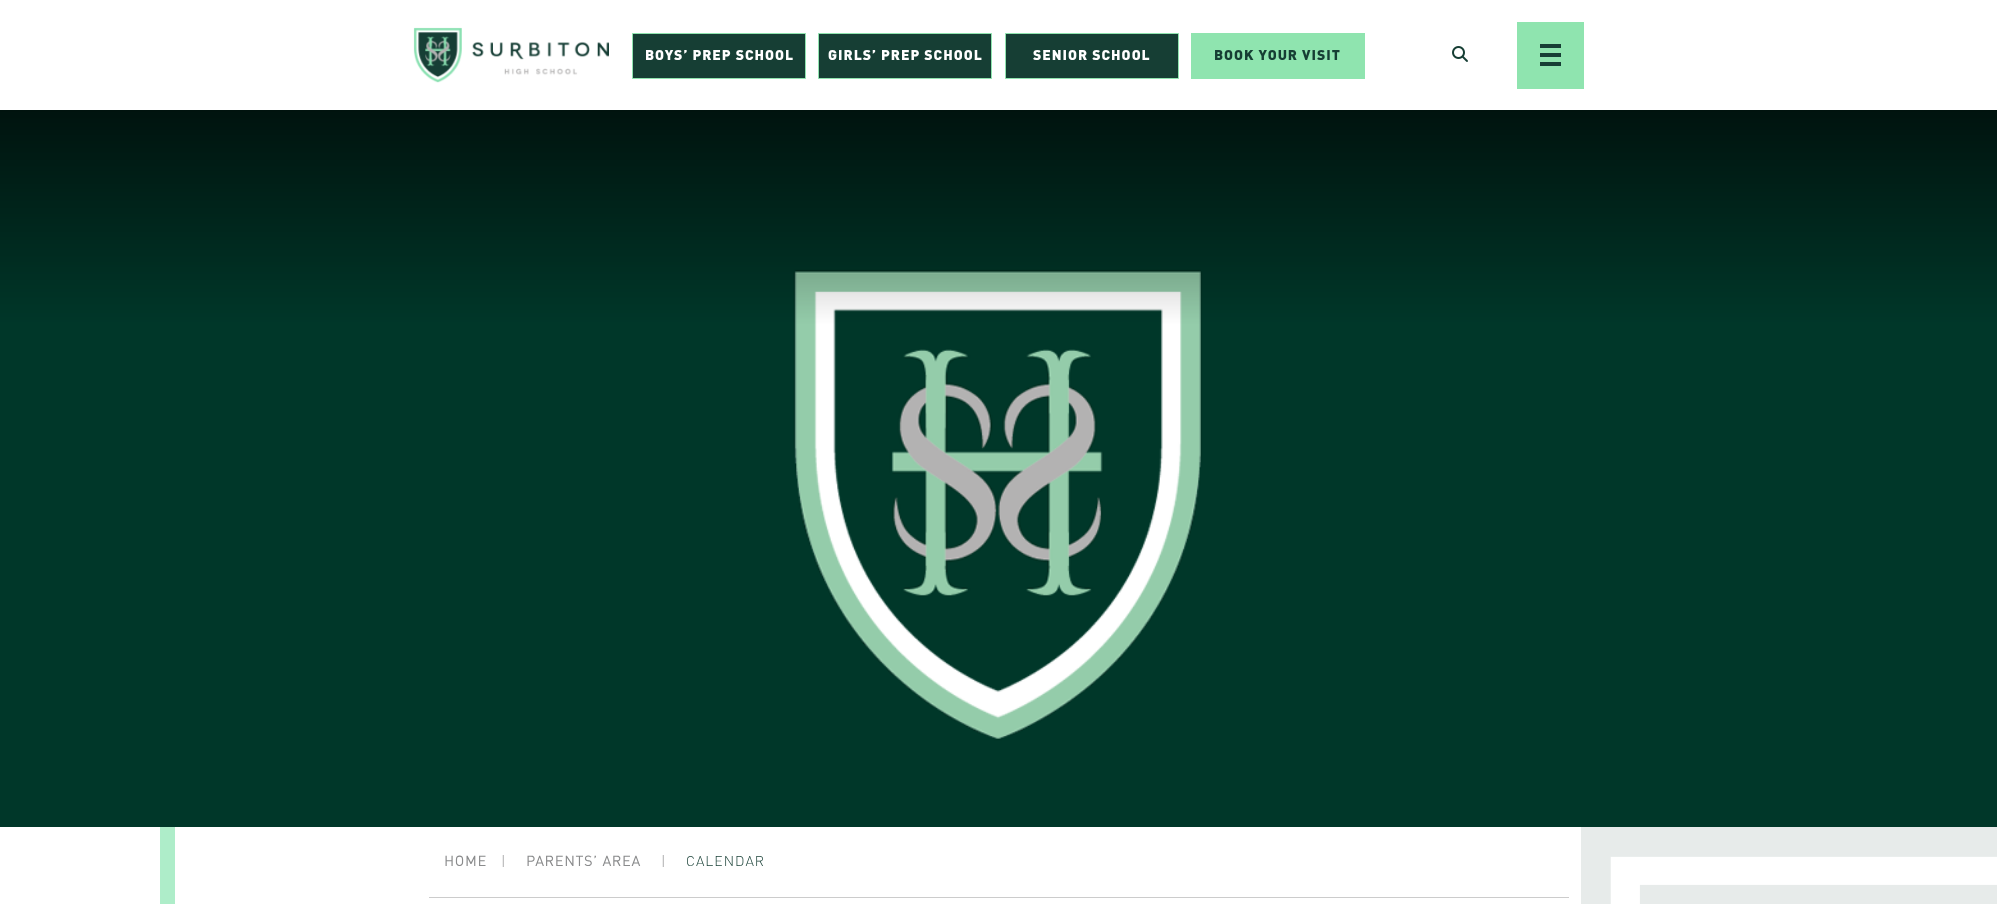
<svg xmlns="http://www.w3.org/2000/svg" width="1997" height="904" viewBox="0 0 1997 904">
  <rect width="100%" height="100%" fill="#fff"/>
  <image x="413" y="27" width="196" height="56" href="img/1.png"/>
  <path d="M632.5 33.5h173v45H632.5z" fill="#163e34" stroke="#8fe4af"/>
  <path d="M818.5 33.5h173v45H818.5z" fill="#163e34" stroke="#8fe4af"/>
  <path d="M1005.5 33.5h173v45H1005.5z" fill="#163e34" stroke="#8fe4af"/>
  <path d="M1191 33h174v46H1191z" fill="#8fe4af"/>
  <image x="1452" y="46" width="16" height="16" href="img/2.png"/>
  <path d="M1517 22h67v67H1517z" fill="#8fe4af"/>
  <path d="M1540 53h21v4H1540z" fill="#163e34"/>
  <path d="M1540 44h21v4H1540z" fill="#163e34"/>
  <path d="M1540 62h21v4H1540z" fill="#163e34"/>
  <image x="0" y="110" width="1997" height="717" href="img/3.png"/>
  <path d="M160 827h15v77H160z" fill="#aeedc9"/>
  <path d="M429 897h1140v1H429z" fill="#ccc"/>
  <image x="1581" y="827" width="416" height="77" href="img/4.png"/>
  <g font-family="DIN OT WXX" font-size="14" font-weight="900" letter-spacing="1" fill="#fff">
    <text x="645" y="60">BOYS’ PREP SCHOOL</text>
    <text x="828" y="60">GIRLS’ PREP SCHOOL</text>
    <text x="1033" y="60">SENIOR SCHOOL</text>
  </g>
  <text x="1214" y="60" font-family="DIN OT WXX" font-size="14" font-weight="900" letter-spacing="1" fill="#163e34">BOOK YOUR VISIT</text>
  <text x="444" y="866" font-family="DIN OT WXX" font-size="14" font-weight="bold" letter-spacing="1" fill="#8a8b8c">HOME</text>
  <text x="501" y="866" font-family="DIN OT WXX" font-size="14" font-weight="300" letter-spacing="1" fill="#8a8b8c">|</text>
  <text x="526" y="866" font-family="DIN OT WXX" font-size="14" font-weight="bold" letter-spacing="1" fill="#8a8b8c">PARENTS’ AREA</text>
  <text x="661" y="866" font-family="DIN OT WXX" font-size="14" font-weight="300" letter-spacing="1" fill="#8a8b8c">|</text>
  <text x="686" y="866" font-family="DIN OT WXX" font-size="14" font-weight="300" letter-spacing="1" fill="#163e34">CALENDAR</text>
</svg>
